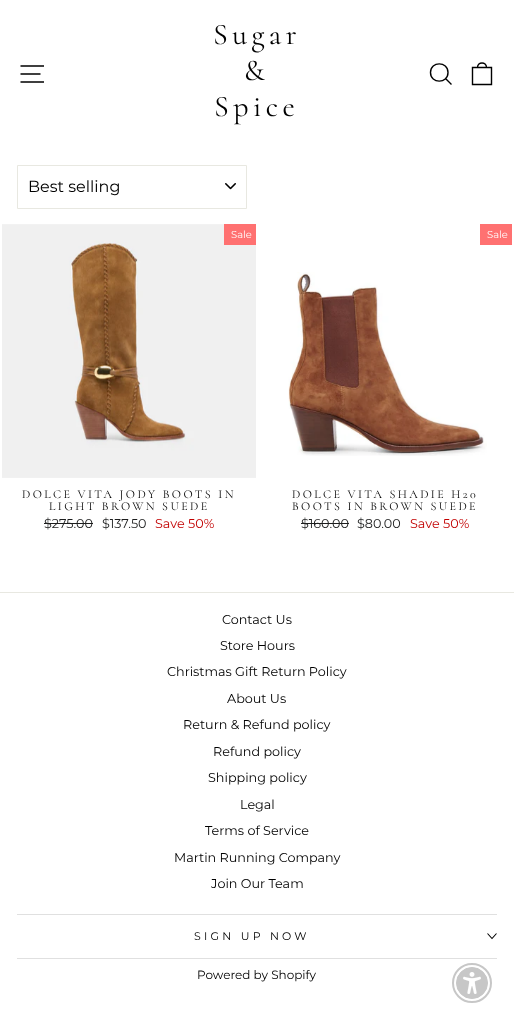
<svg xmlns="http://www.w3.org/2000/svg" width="514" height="1035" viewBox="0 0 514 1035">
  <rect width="100%" height="100%" fill="#fff"/>
  <path d="M20.5 66H44M20.5 74H40.5M20.5 82H44" fill="none" stroke="#000" stroke-width="1.4"/>
  <path d="M448 72.5C448 84 430.5 84 430.5 72.5C430.5 61 448 61 448 72.5ZM451.5 84.5L445.5 78.5" fill="none" stroke="#000" stroke-width="1.4"/>
  <path d="M472.5 67.5H491.5V84.5H472.5ZM477.5 67.5C477.5 61.5 486.5 61.5 486.5 67.5" fill="none" stroke="#000" stroke-width="1.4"/>
  <image x="225" y="183" width="11" height="7" href="img/1.png"/>
  <path d="M17.5 165.5h229v43H17.5z" fill="none" stroke="#e8e8e1"/>
  <image x="2" y="224" width="254" height="254" href="img/2.png"/>
  <path d="M224 224h32v21H224z" fill="#ff7171"/>
  <path d="M44 523h49v1H44z" fill="#1c1d1d"/>
  <path d="M480 224h32v21H480z" fill="#ff7171"/>
  <image x="288" y="272" width="199" height="184" href="img/3.png"/>
  <path d="M301 523h48v1H301z" fill="#1c1d1d"/>
  <path d="M0 592h514v1H0z" fill="#e8e8e1"/>
  <path d="M17 914h480v1H17z" fill="#e0e0e0"/>
  <path d="M487.5 933.5L492 938.5L496.5 933.5" fill="none" stroke="#000" stroke-width="1.1"/>
  <path d="M17 958h480v1H17z" fill="#e0e0e0"/>
  <circle cx="472" cy="983" r="19" fill="none" stroke="#c7c7c7" stroke-width="2"/>
  <circle cx="472" cy="983" r="15.5" fill="#c7c7c7" stroke="#c7c7c7"/>
  <image x="463" y="972" width="18" height="22" href="img/4.png"/>
  <g font-family="Cormorant" font-size="30" letter-spacing="4.5" fill="#000">
    <text x="213" y="44">Sugar</text>
    <text x="244" y="80">&amp;</text>
    <text x="214" y="116">Spice</text>
  </g>
  <text x="28" y="192" font-family="Montserrat" font-size="16" fill="#000">Best selling</text>
  <text x="231" y="238" font-family="Montserrat" font-size="10" fill="#fff">Sale</text>
  <g font-family="Cormorant" font-size="12" letter-spacing="2.4" fill="#000">
    <text x="22" y="498">DOLCE VITA JODY BOOTS IN</text>
    <text x="49" y="510">LIGHT BROWN SUEDE</text>
  </g>
  <g font-family="Montserrat" font-size="12.75" fill="#1c1d1d">
    <text x="44" y="528">$275.00</text>
    <text x="102" y="528">$137.50</text>
  </g>
  <text x="155" y="528" font-family="Montserrat" font-size="12.75" fill="#c20000">Save 50%</text>
  <text x="487" y="238" font-family="Montserrat" font-size="10" fill="#fff">Sale</text>
  <g font-family="Cormorant" font-size="12" letter-spacing="2.4" fill="#000">
    <text x="292" y="498">DOLCE VITA SHADIE H20</text>
    <text x="292" y="510">BOOTS IN BROWN SUEDE</text>
  </g>
  <g font-family="Montserrat" font-size="12.75" fill="#1c1d1d">
    <text x="301" y="528">$160.00</text>
    <text x="357" y="528">$80.00</text>
  </g>
  <text x="410" y="528" font-family="Montserrat" font-size="12.75" fill="#c20000">Save 50%</text>
  <g font-family="Montserrat" font-size="12.75" fill="#000">
    <text x="222" y="624">Contact Us</text>
    <text x="220" y="650">Store Hours</text>
    <text x="167" y="676">Christmas Gift Return Policy</text>
    <text x="227" y="703">About Us</text>
    <text x="183" y="729">Return &amp; Refund policy</text>
    <text x="213" y="756">Refund policy</text>
    <text x="208" y="782">Shipping policy</text>
    <text x="240" y="809">Legal</text>
    <text x="205" y="835">Terms of Service</text>
    <text x="174" y="862">Martin Running Company</text>
    <text x="211" y="888">Join Our Team</text>
  </g>
  <text x="194" y="940" font-family="Montserrat" font-size="11" letter-spacing="3.25" fill="#000">SIGN UP NOW</text>
  <text x="197" y="979" font-family="Montserrat" font-size="12" fill="#000">Powered by Shopify</text>
</svg>
